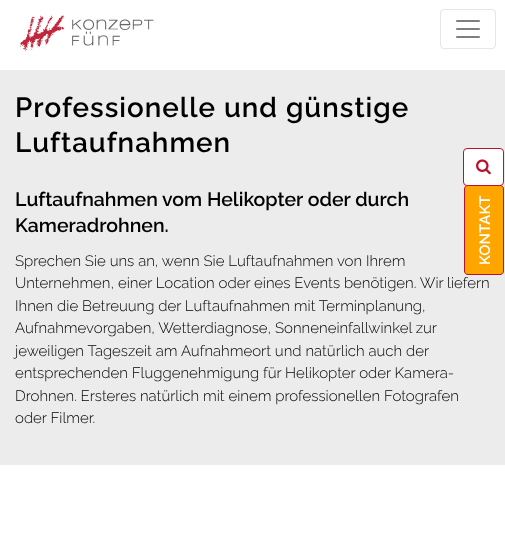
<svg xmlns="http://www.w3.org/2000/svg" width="505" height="534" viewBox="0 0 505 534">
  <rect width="100%" height="100%" fill="#fff"/>
  <image x="20" y="15" width="134" height="36" href="img/1.png"/>
  <rect x="440.5" y="9.5" width="55" height="39" rx="3.5" fill="none" stroke="#e6e6e6"/>
  <image x="456" y="20" width="24" height="18" href="img/2.png"/>
  <path d="M0 70h505v395H0z" fill="#ececec"/>
  <rect x="463.5" y="148.5" width="40" height="37" rx="3.5" fill="#fff" stroke="#bc112e"/>
  <image x="476" y="159" width="15" height="16" href="img/3.png"/>
  <path d="M464 271V189C464 187 466 185 468 185H500C502 185 504 187 504 189V271C504 273 502 275 500 275H468C466 275 464 273 464 271Z" fill="#ffa500"/>
  <path d="M464.5 271V189C464.5 187 466 185.5 468 185.5H500C502 185.5 503.5 187 503.5 189V271C503.5 273 502 274.5 500 274.5H468C466 274.5 464.5 273 464.5 271Z" fill="none" stroke="#bc112e"/>
  <g font-family="Raleway" font-size="27.75" font-weight="600" letter-spacing="1" fill="#000">
    <text x="15" y="117">Professionelle und günstige</text>
    <text x="15" y="152">Luftaufnahmen</text>
  </g>
  <g font-family="Raleway" font-size="19.5" font-weight="600" fill="#000">
    <text x="15" y="206">Luftaufnahmen vom Helikopter oder durch</text>
    <text x="15" y="232">Kameradrohnen.</text>
  </g>
  <g font-family="Raleway" font-size="15" font-weight="300" fill="#000">
    <text x="15" y="266">Sprechen Sie uns an, wenn Sie Luftaufnahmen von Ihrem</text>
    <text x="15" y="288">Unternehmen, einer Location oder eines Events benötigen. Wir liefern</text>
    <text x="15" y="311">Ihnen die Betreuung der Luftaufnahmen mit Terminplanung,</text>
    <text x="15" y="333">Aufnahmevorgaben, Wetterdiagnose, Sonneneinfallwinkel zur</text>
    <text x="15" y="356">jeweiligen Tageszeit am Aufnahmeort und natürlich auch der</text>
    <text x="15" y="378">entsprechenden Fluggenehmigung für Helikopter oder Kamera-</text>
    <text x="15" y="401">Drohnen. Ersteres natürlich mit einem professionellen Fotografen</text>
    <text x="15" y="423">oder Filmer.</text>
  </g>
  <text x="490" y="265" transform="rotate(-90 490 265)" font-family="Raleway" font-size="15" font-weight="600" fill="#fff">KONTAKT</text>
</svg>
